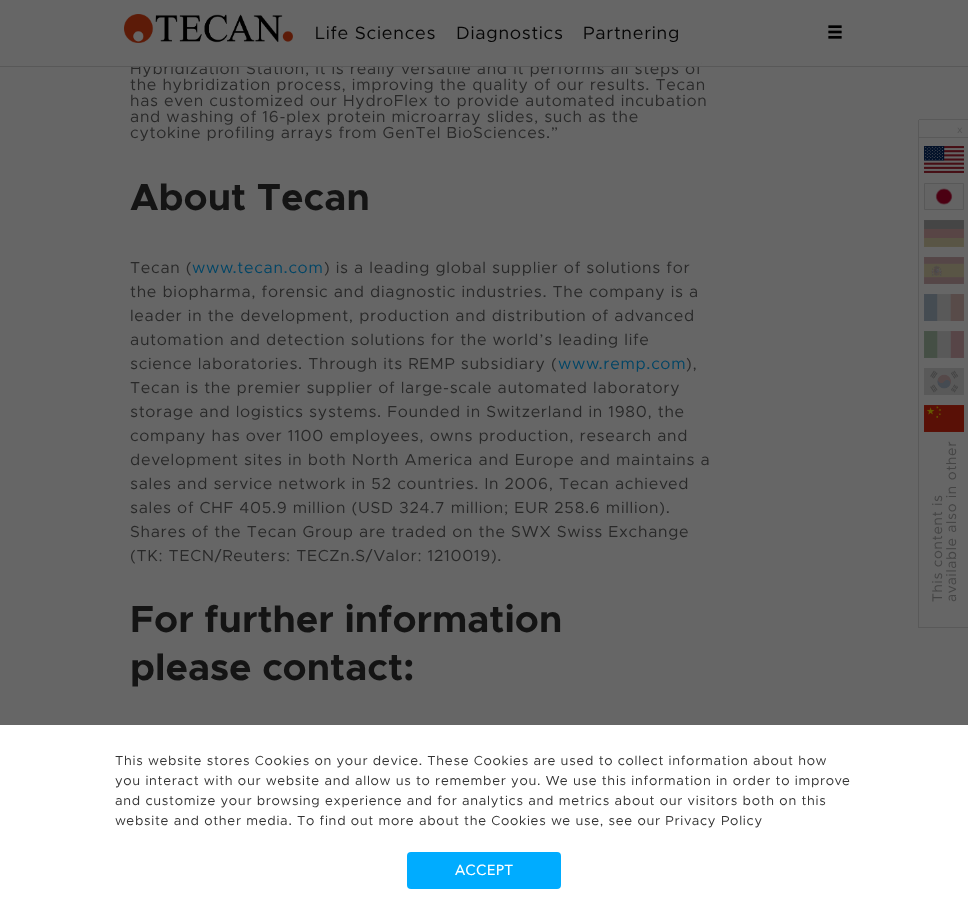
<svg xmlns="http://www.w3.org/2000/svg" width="968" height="915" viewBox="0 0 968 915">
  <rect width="100%" height="100%" fill="#666"/>
  <image x="124" y="14" width="169" height="29" href="img/1.png"/>
  <image x="828" y="25" width="14" height="14" href="img/2.png"/>
  <path d="M919 119h49v1H919z" fill="#595959"/>
  <path d="M918 137h50v1H918z" fill="#595959"/>
  <path d="M918 120h1v508H918z" fill="#595959"/>
  <path d="M919 627h49v1H919z" fill="#595959"/>
  <image x="924" y="146" width="40" height="27" href="img/3.png"/>
  <path d="M924.5 183.5h39v26H924.5z" fill="none" stroke="#585858"/>
  <image x="925" y="184" width="38" height="25" href="img/4.png"/>
  <path d="M924 220h40v27H924z" fill="#575757"/>
  <image x="924" y="220" width="40" height="27" href="img/5.png"/>
  <path d="M924 257h40v27H924z" fill="#575757"/>
  <image x="924" y="257" width="40" height="27" href="img/6.png"/>
  <path d="M924 294h40v27H924z" fill="#575757"/>
  <image x="924" y="294" width="40" height="27" href="img/7.png"/>
  <path d="M924 331h40v27H924z" fill="#575757"/>
  <image x="924" y="331" width="40" height="27" href="img/8.png"/>
  <path d="M924 368h40v27H924z" fill="#575757"/>
  <image x="924" y="368" width="40" height="27" href="img/9.png"/>
  <image x="924" y="405" width="40" height="27" href="img/10.png"/>
  <path d="M0 725h968v190H0z" fill="#fff"/>
  <rect x="407" y="852" width="154" height="37" rx="4" fill="#00acff"/>
  <g font-family="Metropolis" font-size="18" letter-spacing="0.72" fill="#070707">
    <text x="315" y="39">Life Sciences</text>
    <text x="456" y="39">Diagnostics</text>
    <text x="583" y="39">Partnering</text>
  </g>
  <text x="957" y="133" font-family="Metropolis" font-size="10" letter-spacing="0.72" fill="#525252">x</text>
  <g font-family="Metropolis" font-size="14" letter-spacing="0.72" fill="#444">
    <text x="942" y="602" transform="rotate(-90 942 602)">This content is</text>
    <text x="956" y="602" transform="rotate(-90 956 602)">available also in other</text>
  </g>
  <text x="130" y="74" font-family="Metropolis" font-size="16" letter-spacing="0.72" fill="#292929">Hybridization Station, it is really versatile and it performs all steps of</text>
  <path d="M0 66h968v1H0z" fill="#585858"/>
  <path d="M131 62h570v4H131z" fill="#666"/>
  <g font-family="Metropolis" font-size="16" letter-spacing="0.72" fill="#292929">
    <text x="130" y="90">the hybridization process, improving the quality of our results. Tecan</text>
    <text x="130" y="106">has even customized our HydroFlex to provide automated incubation</text>
    <text x="130" y="122">and washing of 16-plex protein microarray slides, such as the</text>
    <text x="130" y="138">cytokine profiling arrays from GenTel BioSciences.”</text>
  </g>
  <text x="130" y="210" font-family="Metropolis" font-size="38" font-weight="bold" fill="#141414">About Tecan</text>
  <text x="130" y="273" font-family="Metropolis" font-size="16" letter-spacing="0.72" fill="#292929">Tecan (</text>
  <text x="192" y="273" font-family="Metropolis" font-size="16" letter-spacing="0.72" fill="#004566">www.tecan.com</text>
  <g font-family="Metropolis" font-size="16" letter-spacing="0.72" fill="#292929">
    <text x="324" y="273">) is a leading global supplier of solutions for</text>
    <text x="130" y="297">the biopharma, forensic and diagnostic industries. The company is a</text>
    <text x="130" y="321">leader in the development, production and distribution of advanced</text>
    <text x="130" y="345">automation and detection solutions for the world’s leading life</text>
    <text x="130" y="369">science laboratories. Through its REMP subsidiary (</text>
  </g>
  <text x="558" y="369" font-family="Metropolis" font-size="16" letter-spacing="0.72" fill="#004566">www.remp.com</text>
  <g font-family="Metropolis" font-size="16" letter-spacing="0.72" fill="#292929">
    <text x="686" y="369">),</text>
    <text x="130" y="393">Tecan is the premier supplier of large-scale automated laboratory</text>
    <text x="130" y="417">storage and logistics systems. Founded in Switzerland in 1980, the</text>
    <text x="130" y="441">company has over 1100 employees, owns production, research and</text>
    <text x="130" y="465">development sites in both North America and Europe and maintains a</text>
    <text x="130" y="489">sales and service network in 52 countries. In 2006, Tecan achieved</text>
    <text x="130" y="513">sales of CHF 405.9 million (USD 324.7 million; EUR 258.6 million).</text>
    <text x="130" y="537">Shares of the Tecan Group are traded on the SWX Swiss Exchange</text>
    <text x="130" y="561">(TK: TECN/Reuters: TECZn.S/Valor: 1210019).</text>
  </g>
  <g font-family="Metropolis" font-size="38" font-weight="bold" fill="#141414">
    <text x="130" y="632">For further information</text>
    <text x="130" y="680">please contact:</text>
  </g>
  <g font-family="Metropolis" font-size="13.2" letter-spacing="0.72" fill="#333">
    <text x="115" y="765">This website stores Cookies on your device. These Cookies are used to collect information about how</text>
    <text x="115" y="785">you interact with our website and allow us to remember you. We use this information in order to improve</text>
    <text x="115" y="805">and customize your browsing experience and for analytics and metrics about our visitors both on this</text>
    <text x="115" y="825">website and other media. To find out more about the Cookies we use, see our Privacy Policy</text>
  </g>
  <text x="455" y="875" font-family="'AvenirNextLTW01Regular'" font-size="14" font-weight="bold" letter-spacing="0.75" fill="#fff">ACCEPT</text>
</svg>
